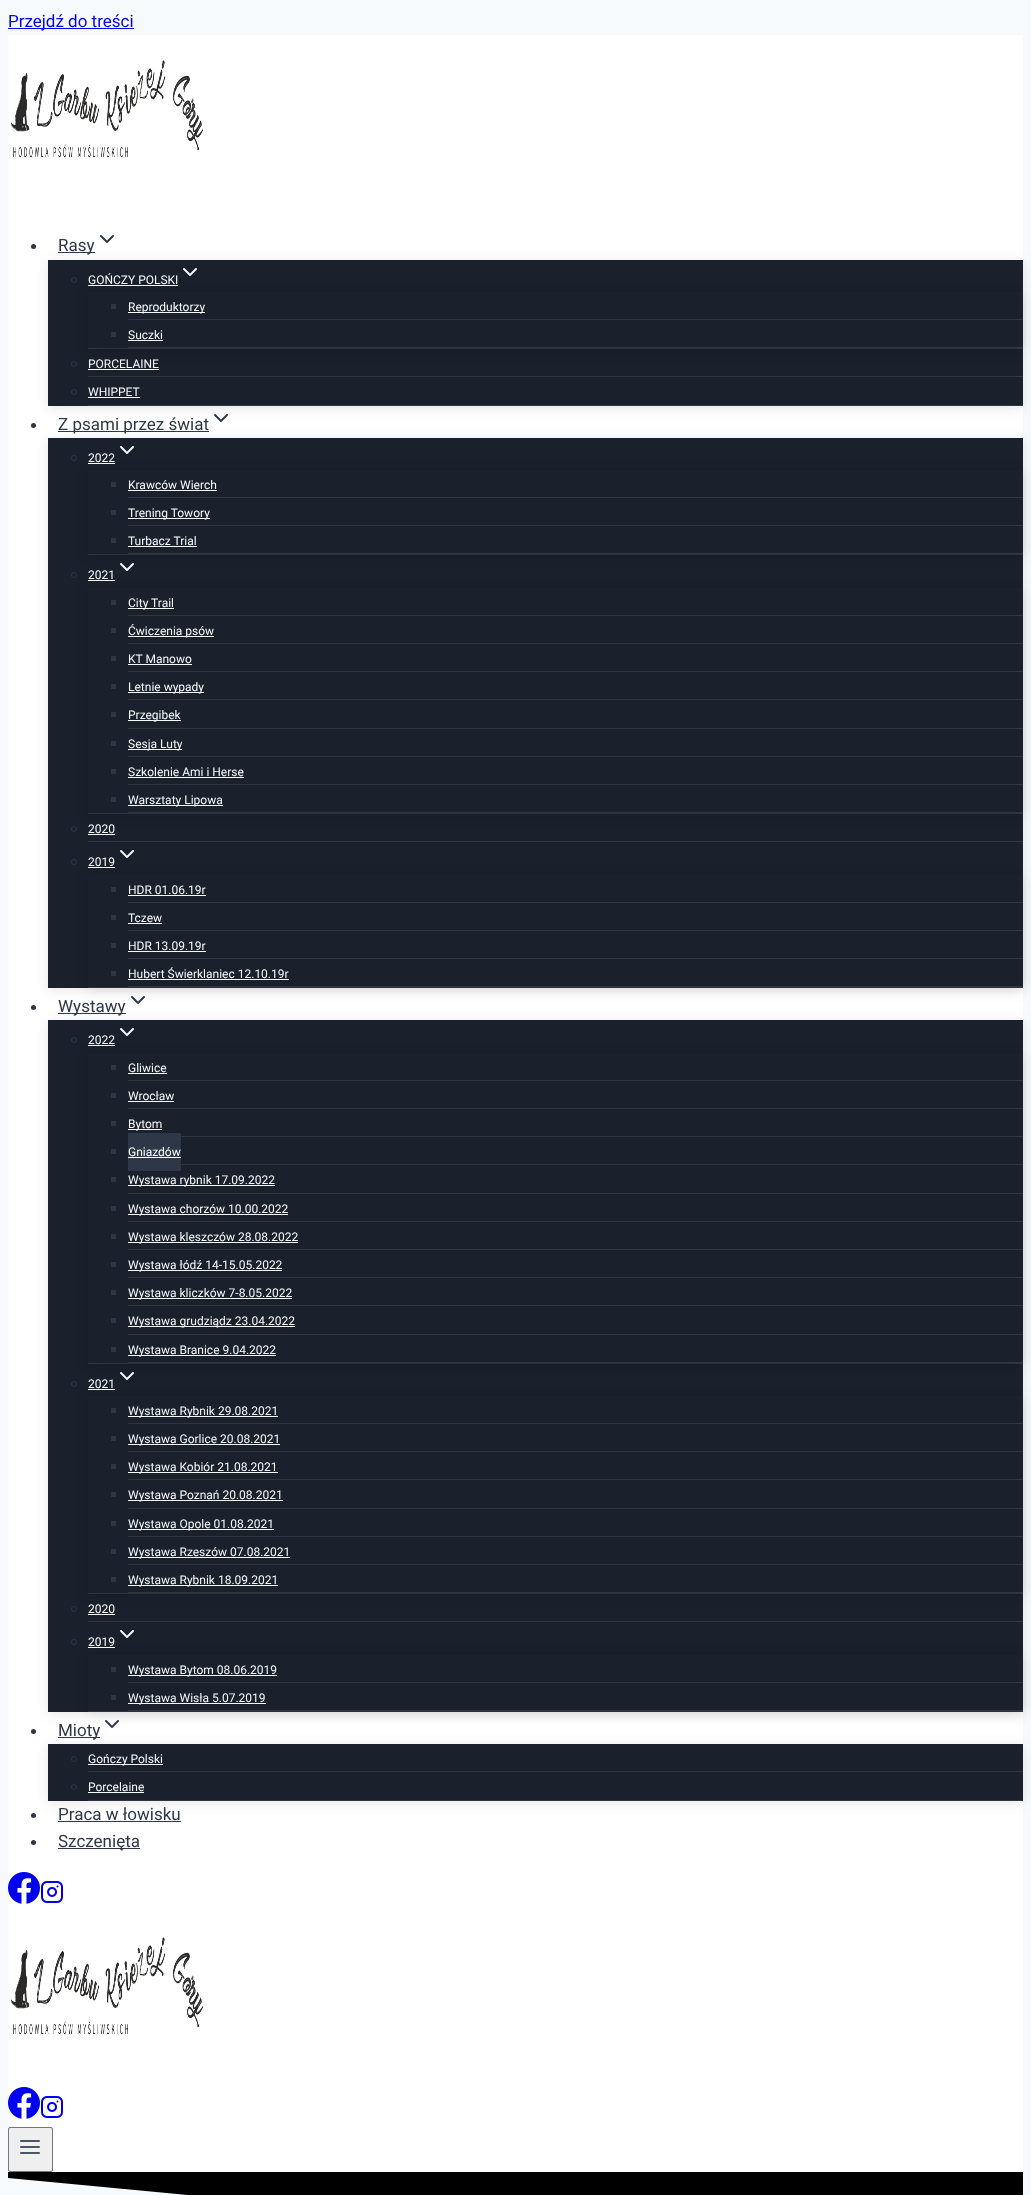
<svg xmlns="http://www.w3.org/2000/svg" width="1031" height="2195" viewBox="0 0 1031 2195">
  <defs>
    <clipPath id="clip1"><path d="M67 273H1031V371H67ZM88 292H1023V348H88Z" clip-rule="evenodd"/></clipPath>
    <clipPath id="clip2"><path d="M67 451H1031V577H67ZM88 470H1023V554H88Z" clip-rule="evenodd"/></clipPath>
    <clipPath id="clip3"><path d="M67 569H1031V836H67ZM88 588H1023V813H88Z" clip-rule="evenodd"/></clipPath>
    <clipPath id="clip4"><path d="M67 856H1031V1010H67ZM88 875H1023V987H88Z" clip-rule="evenodd"/></clipPath>
    <clipPath id="clip5"><path d="M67 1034H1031V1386H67ZM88 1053H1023V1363H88Z" clip-rule="evenodd"/></clipPath>
    <clipPath id="clip6"><path d="M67 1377H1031V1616H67ZM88 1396H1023V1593H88Z" clip-rule="evenodd"/></clipPath>
    <clipPath id="clip7"><path d="M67 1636H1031V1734H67ZM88 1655H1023V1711H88Z" clip-rule="evenodd"/></clipPath>
  </defs>
  <rect width="100%" height="100%" fill="#f7fafc"/>
  <path d="M8 28h126v1H8z" fill="#00e"/>
  <path d="M8 35h1015v2137H8z" fill="#fff"/>
  <image x="11" y="60" width="193" height="98" href="img/1.png"/>
  <path d="M48 262h975v146H48z" fill="#0000001a" filter="blur(6.5px)"/>
  <circle cx="33.5" cy="246.5" r="2.5" fill="#2d3748"/>
  <path d="M58 252h37v1H58z" fill="#2d3748"/>
  <image x="100" y="235" width="14" height="8" href="img/2.png"/>
  <path d="M48 260h975v146H48z" fill="#1a202c"/>
  <path d="M88 348h935v1H88z" fill="#313641"/>
  <g clip-path="url(#clip1)">
    <path d="M88 294h935v56H88z" fill="#0000001a" filter="blur(6.5px)"/>
  </g>
  <image x="183" y="268" width="14" height="8" href="img/3.png"/>
  <circle cx="74" cy="280" r="2.5" fill="none" stroke="#2d3748"/>
  <path d="M88 285h90v1H88z" fill="#f7fafc"/>
  <path d="M128 319h895v1H128z" fill="#313641"/>
  <path d="M111 304h5v5H111z" fill="#2d3748"/>
  <path d="M128 312h77v1H128z" fill="#f7fafc"/>
  <path d="M128 347h895v1H128z" fill="#313641"/>
  <path d="M111 332h5v5H111z" fill="#2d3748"/>
  <path d="M128 340h35v1H128z" fill="#f7fafc"/>
  <path d="M88 376h935v1H88z" fill="#313641"/>
  <circle cx="74" cy="364" r="2.5" fill="none" stroke="#2d3748"/>
  <path d="M88 369h71v1H88z" fill="#f7fafc"/>
  <path d="M88 405h935v1H88z" fill="#313641"/>
  <circle cx="74" cy="392" r="2.5" fill="none" stroke="#2d3748"/>
  <path d="M88 397h52v1H88z" fill="#f7fafc"/>
  <path d="M48 440h975v550H48z" fill="#0000001a" filter="blur(6.5px)"/>
  <circle cx="33.5" cy="425.5" r="2.5" fill="#2d3748"/>
  <path d="M58 431h151v1H58z" fill="#2d3748"/>
  <image x="214" y="414" width="14" height="8" href="img/4.png"/>
  <path d="M48 438h975v550H48z" fill="#1a202c"/>
  <path d="M88 554h935v1H88z" fill="#313641"/>
  <g clip-path="url(#clip2)">
    <path d="M88 472h935v84H88z" fill="#0000001a" filter="blur(6.5px)"/>
  </g>
  <image x="120" y="446" width="14" height="8" href="img/3.png"/>
  <circle cx="74" cy="458" r="2.5" fill="none" stroke="#2d3748"/>
  <path d="M88 463h27v1H88z" fill="#f7fafc"/>
  <path d="M128 497h895v1H128z" fill="#313641"/>
  <path d="M111 482h5v5H111z" fill="#2d3748"/>
  <path d="M128 490h89v1H128z" fill="#f7fafc"/>
  <path d="M128 525h895v1H128z" fill="#313641"/>
  <path d="M111 510h5v5H111z" fill="#2d3748"/>
  <path d="M128 518h82v1H128z" fill="#f7fafc"/>
  <path d="M128 553h895v1H128z" fill="#313641"/>
  <path d="M111 538h5v5H111z" fill="#2d3748"/>
  <path d="M128 546h69v1H128z" fill="#f7fafc"/>
  <path d="M88 813h935v1H88z" fill="#313641"/>
  <g clip-path="url(#clip3)">
    <path d="M88 590h935v225H88z" fill="#0000001a" filter="blur(6.5px)"/>
  </g>
  <image x="120" y="563" width="14" height="8" href="img/5.png"/>
  <circle cx="74" cy="575" r="2.5" fill="none" stroke="#2d3748"/>
  <path d="M88 580h27v1H88z" fill="#f7fafc"/>
  <path d="M128 615h895v1H128z" fill="#313641"/>
  <path d="M111 600h5v5H111z" fill="#2d3748"/>
  <path d="M128 608h46v1H128z" fill="#f7fafc"/>
  <path d="M128 643h895v1H128z" fill="#313641"/>
  <path d="M111 628h5v5H111z" fill="#2d3748"/>
  <path d="M128 636h86v1H128z" fill="#f7fafc"/>
  <path d="M128 671h895v1H128z" fill="#313641"/>
  <path d="M111 656h5v5H111z" fill="#2d3748"/>
  <path d="M128 664h64v1H128z" fill="#f7fafc"/>
  <path d="M128 699h895v1H128z" fill="#313641"/>
  <path d="M111 684h5v5H111z" fill="#2d3748"/>
  <path d="M128 692h76v1H128z" fill="#f7fafc"/>
  <path d="M128 728h895v1H128z" fill="#313641"/>
  <path d="M111 712h5v5H111z" fill="#2d3748"/>
  <path d="M128 720h53v1H128z" fill="#f7fafc"/>
  <path d="M128 756h895v1H128z" fill="#313641"/>
  <path d="M111 741h5v5H111z" fill="#2d3748"/>
  <path d="M128 749h54v1H128z" fill="#f7fafc"/>
  <path d="M128 784h895v1H128z" fill="#313641"/>
  <path d="M111 769h5v5H111z" fill="#2d3748"/>
  <path d="M128 777h116v1H128z" fill="#f7fafc"/>
  <path d="M128 812h895v1H128z" fill="#313641"/>
  <path d="M111 797h5v5H111z" fill="#2d3748"/>
  <path d="M128 805h95v1H128z" fill="#f7fafc"/>
  <path d="M88 841h935v1H88z" fill="#313641"/>
  <circle cx="74" cy="829" r="2.5" fill="none" stroke="#2d3748"/>
  <path d="M88 834h27v1H88z" fill="#f7fafc"/>
  <path d="M88 987h935v1H88z" fill="#313641"/>
  <g clip-path="url(#clip4)">
    <path d="M88 877h935v112H88z" fill="#0000001a" filter="blur(6.5px)"/>
  </g>
  <image x="120" y="850" width="14" height="8" href="img/3.png"/>
  <circle cx="74" cy="862" r="2.5" fill="none" stroke="#2d3748"/>
  <path d="M88 867h27v1H88z" fill="#f7fafc"/>
  <path d="M128 902h895v1H128z" fill="#313641"/>
  <path d="M111 887h5v5H111z" fill="#2d3748"/>
  <path d="M128 895h78v1H128z" fill="#f7fafc"/>
  <path d="M128 930h895v1H128z" fill="#313641"/>
  <path d="M111 915h5v5H111z" fill="#2d3748"/>
  <path d="M128 923h34v1H128z" fill="#f7fafc"/>
  <path d="M128 958h895v1H128z" fill="#313641"/>
  <path d="M111 943h5v5H111z" fill="#2d3748"/>
  <path d="M128 951h78v1H128z" fill="#f7fafc"/>
  <path d="M128 986h895v1H128z" fill="#313641"/>
  <path d="M111 971h5v5H111z" fill="#2d3748"/>
  <path d="M128 979h161v1H128z" fill="#f7fafc"/>
  <path d="M48 1022h975v692H48z" fill="#0000001a" filter="blur(6.5px)"/>
  <circle cx="33.5" cy="1007.5" r="2.5" fill="#2d3748"/>
  <path d="M58 1013h68v1H58z" fill="#2d3748"/>
  <image x="131" y="996" width="14" height="8" href="img/6.png"/>
  <path d="M48 1020h975v692H48z" fill="#1a202c"/>
  <path d="M88 1363h935v1H88z" fill="#313641"/>
  <g clip-path="url(#clip5)">
    <path d="M88 1055h935v310H88z" fill="#0000001a" filter="blur(6.5px)"/>
  </g>
  <image x="120" y="1028" width="14" height="8" href="img/3.png"/>
  <circle cx="74" cy="1040" r="2.5" fill="none" stroke="#2d3748"/>
  <path d="M88 1045h27v1H88z" fill="#f7fafc"/>
  <path d="M128 1080h895v1H128z" fill="#313641"/>
  <path d="M111 1065h5v5H111z" fill="#2d3748"/>
  <path d="M128 1073h39v1H128z" fill="#f7fafc"/>
  <path d="M128 1108h895v1H128z" fill="#313641"/>
  <path d="M111 1093h5v5H111z" fill="#2d3748"/>
  <path d="M128 1101h46v1H128z" fill="#f7fafc"/>
  <path d="M181 1136h842v1H181z" fill="#313641"/>
  <path d="M111 1121h5v5H111z" fill="#2d3748"/>
  <path d="M128 1129h34v1H128z" fill="#f7fafc"/>
  <path d="M181 1164h842v1H181z" fill="#313641"/>
  <path d="M111 1149h5v5H111z" fill="#2d3748"/>
  <path d="M128 1133h53v38H128z" fill="#2d3748"/>
  <path d="M128 1157h53v1H128z" fill="#fff"/>
  <path d="M128 1193h895v1H128z" fill="#313641"/>
  <path d="M111 1177h5v5H111z" fill="#2d3748"/>
  <path d="M128 1185h147v1H128z" fill="#f7fafc"/>
  <path d="M128 1221h895v1H128z" fill="#313641"/>
  <path d="M111 1206h5v5H111z" fill="#2d3748"/>
  <path d="M128 1214h160v1H128z" fill="#f7fafc"/>
  <path d="M128 1249h895v1H128z" fill="#313641"/>
  <path d="M111 1234h5v5H111z" fill="#2d3748"/>
  <path d="M128 1242h170v1H128z" fill="#f7fafc"/>
  <path d="M128 1277h895v1H128z" fill="#313641"/>
  <path d="M111 1262h5v5H111z" fill="#2d3748"/>
  <path d="M128 1270h154v1H128z" fill="#f7fafc"/>
  <path d="M128 1305h895v1H128z" fill="#313641"/>
  <path d="M111 1290h5v5H111z" fill="#2d3748"/>
  <path d="M128 1298h164v1H128z" fill="#f7fafc"/>
  <path d="M128 1334h895v1H128z" fill="#313641"/>
  <path d="M111 1318h5v5H111z" fill="#2d3748"/>
  <path d="M128 1326h167v1H128z" fill="#f7fafc"/>
  <path d="M128 1362h895v1H128z" fill="#313641"/>
  <path d="M111 1347h5v5H111z" fill="#2d3748"/>
  <path d="M128 1355h148v1H128z" fill="#f7fafc"/>
  <path d="M88 1593h935v1H88z" fill="#313641"/>
  <g clip-path="url(#clip6)">
    <path d="M88 1398h935v197H88z" fill="#0000001a" filter="blur(6.5px)"/>
  </g>
  <image x="120" y="1372" width="14" height="8" href="img/5.png"/>
  <circle cx="74" cy="1384" r="2.5" fill="none" stroke="#2d3748"/>
  <path d="M88 1389h27v1H88z" fill="#f7fafc"/>
  <path d="M128 1423h895v1H128z" fill="#313641"/>
  <path d="M111 1408h5v5H111z" fill="#2d3748"/>
  <path d="M128 1416h150v1H128z" fill="#f7fafc"/>
  <path d="M128 1451h895v1H128z" fill="#313641"/>
  <path d="M111 1436h5v5H111z" fill="#2d3748"/>
  <path d="M128 1444h152v1H128z" fill="#f7fafc"/>
  <path d="M128 1479h895v1H128z" fill="#313641"/>
  <path d="M111 1464h5v5H111z" fill="#2d3748"/>
  <path d="M128 1472h150v1H128z" fill="#f7fafc"/>
  <path d="M128 1508h895v1H128z" fill="#313641"/>
  <path d="M111 1492h5v5H111z" fill="#2d3748"/>
  <path d="M128 1500h155v1H128z" fill="#f7fafc"/>
  <path d="M128 1536h895v1H128z" fill="#313641"/>
  <path d="M111 1521h5v5H111z" fill="#2d3748"/>
  <path d="M128 1529h146v1H128z" fill="#f7fafc"/>
  <path d="M128 1564h895v1H128z" fill="#313641"/>
  <path d="M111 1549h5v5H111z" fill="#2d3748"/>
  <path d="M128 1557h162v1H128z" fill="#f7fafc"/>
  <path d="M128 1592h895v1H128z" fill="#313641"/>
  <path d="M111 1577h5v5H111z" fill="#2d3748"/>
  <path d="M128 1585h150v1H128z" fill="#f7fafc"/>
  <path d="M88 1621h935v1H88z" fill="#313641"/>
  <circle cx="74" cy="1609" r="2.5" fill="none" stroke="#2d3748"/>
  <path d="M88 1614h27v1H88z" fill="#f7fafc"/>
  <path d="M88 1711h935v1H88z" fill="#313641"/>
  <g clip-path="url(#clip7)">
    <path d="M88 1657h935v56H88z" fill="#0000001a" filter="blur(6.5px)"/>
  </g>
  <image x="120" y="1630" width="14" height="8" href="img/3.png"/>
  <circle cx="74" cy="1642" r="2.5" fill="none" stroke="#2d3748"/>
  <path d="M88 1647h27v1H88z" fill="#f7fafc"/>
  <path d="M128 1682h895v1H128z" fill="#313641"/>
  <path d="M111 1667h5v5H111z" fill="#2d3748"/>
  <path d="M128 1675h149v1H128z" fill="#f7fafc"/>
  <path d="M128 1710h895v1H128z" fill="#313641"/>
  <path d="M111 1695h5v5H111z" fill="#2d3748"/>
  <path d="M128 1703h138v1H128z" fill="#f7fafc"/>
  <path d="M48 1746h975v57H48z" fill="#0000001a" filter="blur(6.5px)"/>
  <circle cx="33.5" cy="1731.5" r="2.5" fill="#2d3748"/>
  <path d="M58 1737h42v1H58z" fill="#2d3748"/>
  <image x="105" y="1720" width="14" height="8" href="img/6.png"/>
  <path d="M48 1744h975v57H48z" fill="#1a202c"/>
  <path d="M88 1771h935v1H88z" fill="#313641"/>
  <circle cx="74" cy="1759" r="2.5" fill="none" stroke="#2d3748"/>
  <path d="M88 1764h75v1H88z" fill="#f7fafc"/>
  <path d="M88 1800h935v1H88z" fill="#313641"/>
  <circle cx="74" cy="1787" r="2.5" fill="none" stroke="#2d3748"/>
  <path d="M88 1792h56v1H88z" fill="#f7fafc"/>
  <circle cx="33.5" cy="1815.5" r="2.5" fill="#2d3748"/>
  <path d="M58 1821h123v1H58z" fill="#2d3748"/>
  <circle cx="33.5" cy="1842.5" r="2.5" fill="#2d3748"/>
  <path d="M58 1848h82v1H58z" fill="#2d3748"/>
  <image x="8" y="1872" width="32" height="32" href="img/7.png"/>
  <image x="41" y="1881" width="22" height="22" href="img/8.png"/>
  <image x="11" y="1937" width="193" height="98" href="img/1.png"/>
  <image x="8" y="2087" width="32" height="32" href="img/7.png"/>
  <image x="41" y="2096" width="22" height="22" href="img/8.png"/>
  <rect x="8.5" y="2127.5" width="44" height="44" rx="1.5" fill="#efefef" stroke="#767676"/>
  <image x="20" y="2140" width="20" height="14" href="img/9.png"/>
  <path d="M8 2178V2172H1023V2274Z" fill="#000"/>
  <text x="8" y="27" font-family="Roboto" font-size="17" fill="#00e">Przejdź do treści</text>
  <text x="58" y="251" font-family="Roboto" font-size="17" fill="#2d3748">Rasy</text>
  <g font-family="Roboto" font-size="12" fill="#f7fafc">
    <text x="88" y="284">GOŃCZY POLSKI</text>
    <text x="128" y="311">Reproduktorzy</text>
    <text x="128" y="339">Suczki</text>
    <text x="88" y="368">PORCELAINE</text>
    <text x="88" y="396">WHIPPET</text>
  </g>
  <text x="58" y="430" font-family="Roboto" font-size="17" fill="#2d3748">Z psami przez świat</text>
  <g font-family="Roboto" font-size="12" fill="#f7fafc">
    <text x="88" y="462">2022</text>
    <text x="128" y="489">Krawców Wierch</text>
    <text x="128" y="517">Trening Towory</text>
    <text x="128" y="545">Turbacz Trial</text>
    <text x="88" y="579">2021</text>
    <text x="128" y="607">City Trail</text>
    <text x="128" y="635">Ćwiczenia psów</text>
    <text x="128" y="663">KT Manowo</text>
    <text x="128" y="691">Letnie wypady</text>
    <text x="128" y="719">Przegibek</text>
    <text x="128" y="748">Sesja Luty</text>
    <text x="128" y="776">Szkolenie Ami i Herse</text>
    <text x="128" y="804">Warsztaty Lipowa</text>
    <text x="88" y="833">2020</text>
    <text x="88" y="866">2019</text>
    <text x="128" y="894">HDR 01.06.19r</text>
    <text x="128" y="922">Tczew</text>
    <text x="128" y="950">HDR 13.09.19r</text>
    <text x="128" y="978">Hubert Świerklaniec 12.10.19r</text>
  </g>
  <text x="58" y="1012" font-family="Roboto" font-size="17" fill="#2d3748">Wystawy</text>
  <g font-family="Roboto" font-size="12" fill="#f7fafc">
    <text x="88" y="1044">2022</text>
    <text x="128" y="1072">Gliwice</text>
    <text x="128" y="1100">Wrocław</text>
    <text x="128" y="1128">Bytom</text>
  </g>
  <text x="128" y="1156" font-family="Roboto" font-size="12" fill="#fff">Gniazdów</text>
  <g font-family="Roboto" font-size="12" fill="#f7fafc">
    <text x="128" y="1184">Wystawa rybnik 17.09.2022</text>
    <text x="128" y="1213">Wystawa chorzów 10.00.2022</text>
    <text x="128" y="1241">Wystawa kleszczów 28.08.2022</text>
    <text x="128" y="1269">Wystawa łódź 14-15.05.2022</text>
    <text x="128" y="1297">Wystawa kliczków 7-8.05.2022</text>
    <text x="128" y="1325">Wystawa grudziądz 23.04.2022</text>
    <text x="128" y="1354">Wystawa Branice 9.04.2022</text>
    <text x="88" y="1388">2021</text>
    <text x="128" y="1415">Wystawa Rybnik 29.08.2021</text>
    <text x="128" y="1443">Wystawa Gorlice 20.08.2021</text>
    <text x="128" y="1471">Wystawa Kobiór 21.08.2021</text>
    <text x="128" y="1499">Wystawa Poznań 20.08.2021</text>
    <text x="128" y="1528">Wystawa Opole 01.08.2021</text>
    <text x="128" y="1556">Wystawa Rzeszów 07.08.2021</text>
    <text x="128" y="1584">Wystawa Rybnik 18.09.2021</text>
    <text x="88" y="1613">2020</text>
    <text x="88" y="1646">2019</text>
    <text x="128" y="1674">Wystawa Bytom 08.06.2019</text>
    <text x="128" y="1702">Wystawa Wisła 5.07.2019</text>
  </g>
  <text x="58" y="1736" font-family="Roboto" font-size="17" fill="#2d3748">Mioty</text>
  <g font-family="Roboto" font-size="12" fill="#f7fafc">
    <text x="88" y="1763">Gończy Polski</text>
    <text x="88" y="1791">Porcelaine</text>
  </g>
  <g font-family="Roboto" font-size="17" fill="#2d3748">
    <text x="58" y="1820">Praca w łowisku</text>
    <text x="58" y="1847">Szczenięta</text>
  </g>
</svg>
